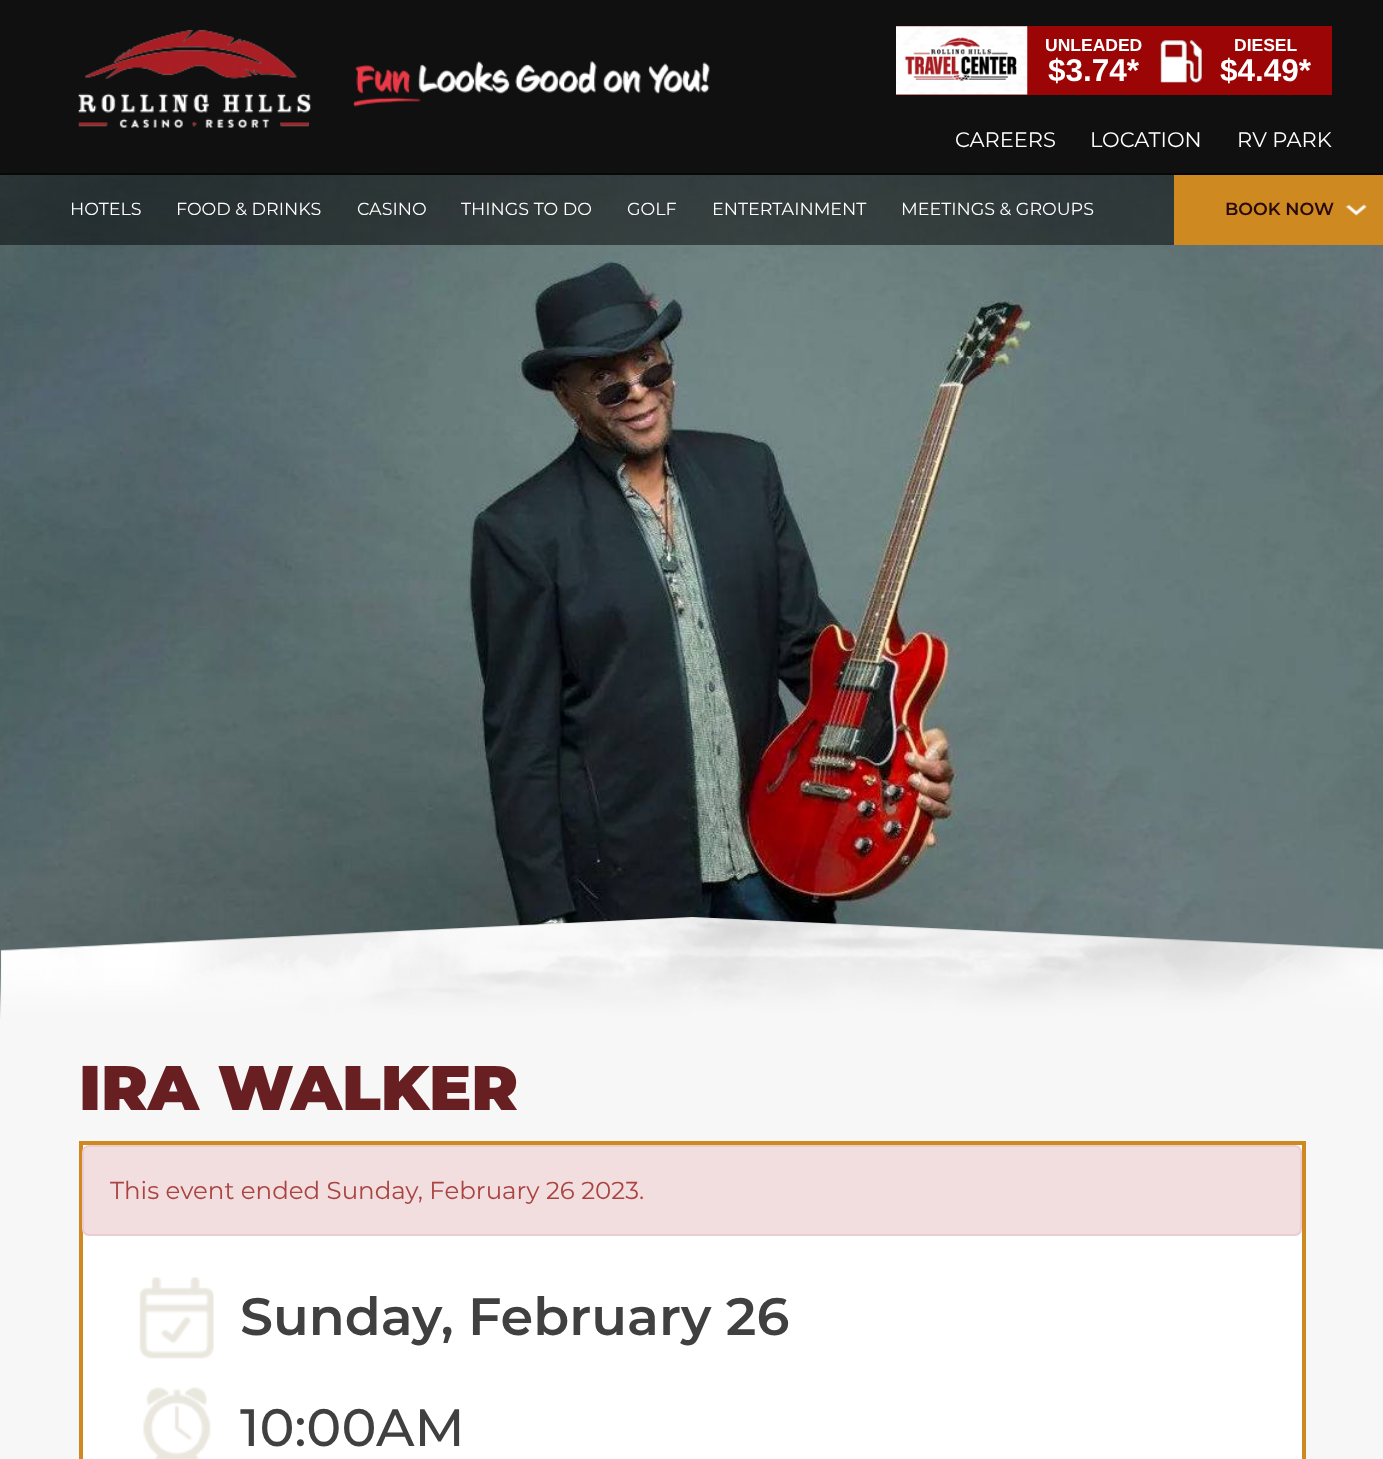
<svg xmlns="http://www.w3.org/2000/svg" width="1383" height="1459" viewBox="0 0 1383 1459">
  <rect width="100%" height="100%" fill="#101010"/>
  <image x="78" y="29" width="632" height="99" href="img/1.png"/>
  <path d="M896 26h436v69H896z" fill="#9c0505"/>
  <image x="896" y="26" width="132" height="69" href="img/2.png"/>
  <image x="1160" y="39" width="43" height="45" href="img/3.png"/>
  <path d="M0 1018h1383v441H0z" fill="#f7f7f7"/>
  <image x="0" y="175" width="1383" height="844" href="img/5.png"/>
  <path d="M0 173h1383v72H0z" fill="#00000080"/>
  <path d="M1174 175h209v70H1174z" fill="#ce8921"/>
  <image x="1345" y="204" width="22" height="12" href="img/4.png"/>
  <image x="0" y="917" width="1383" height="102" href="img/6.png"/>
  <path d="M81 1143h1223v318H81z" fill="#fff" stroke="#ce8921" stroke-width="4"/>
  <rect x="83" y="1146" width="1218" height="89" rx="6" fill="#f2dede" stroke="#ebccd1" stroke-width="2"/>
  <image x="139" y="1277" width="75" height="82" href="img/7.png"/>
  <image x="143" y="1387" width="68" height="72" href="img/8.png"/>
  <text x="1045" y="51" font-family="Liberation Sans" font-size="17.5" font-weight="bold" fill="#fff">UNLEADED</text>
  <text x="1048" y="81" font-family="Liberation Sans" font-size="31.5" font-weight="bold" fill="#fff">$3.74*</text>
  <text x="1234" y="51" font-family="Liberation Sans" font-size="17.5" font-weight="bold" fill="#fff">DIESEL</text>
  <text x="1220" y="81" font-family="Liberation Sans" font-size="31.5" font-weight="bold" fill="#fff">$4.49*</text>
  <g font-family="Montserrat" font-size="21" font-weight="100" fill="#fff">
    <text x="955" y="147">CAREERS</text>
    <text x="1090" y="147">LOCATION</text>
    <text x="1237" y="147">RV PARK</text>
  </g>
  <g font-family="Montserrat" font-size="17.5" font-weight="100" fill="#fff">
    <text x="70" y="215">HOTELS</text>
    <text x="176" y="215">FOOD &amp; DRINKS</text>
    <text x="357" y="215">CASINO</text>
    <text x="461" y="215">THINGS TO DO</text>
    <text x="627" y="215">GOLF</text>
    <text x="712" y="215">ENTERTAINMENT</text>
    <text x="901" y="215">MEETINGS &amp; GROUPS</text>
  </g>
  <text x="1225" y="215" font-family="Montserrat" font-size="17.5" font-weight="600" fill="#280b0c">BOOK NOW</text>
  <text x="79" y="1110" font-family="Montserrat" font-size="63" font-weight="900" fill="#681f21">IRA WALKER</text>
  <text x="110" y="1199" font-family="Montserrat" font-size="24.5" font-weight="100" fill="#a94442">This event ended Sunday, February 26 2023.</text>
  <text x="240" y="1335" font-family="Montserrat" font-size="52.5" font-weight="600" fill="#404040">Sunday, February 26</text>
  <text x="240" y="1446" font-family="Montserrat" font-size="52.5" font-weight="500" fill="#404040">10:00AM</text>
</svg>
